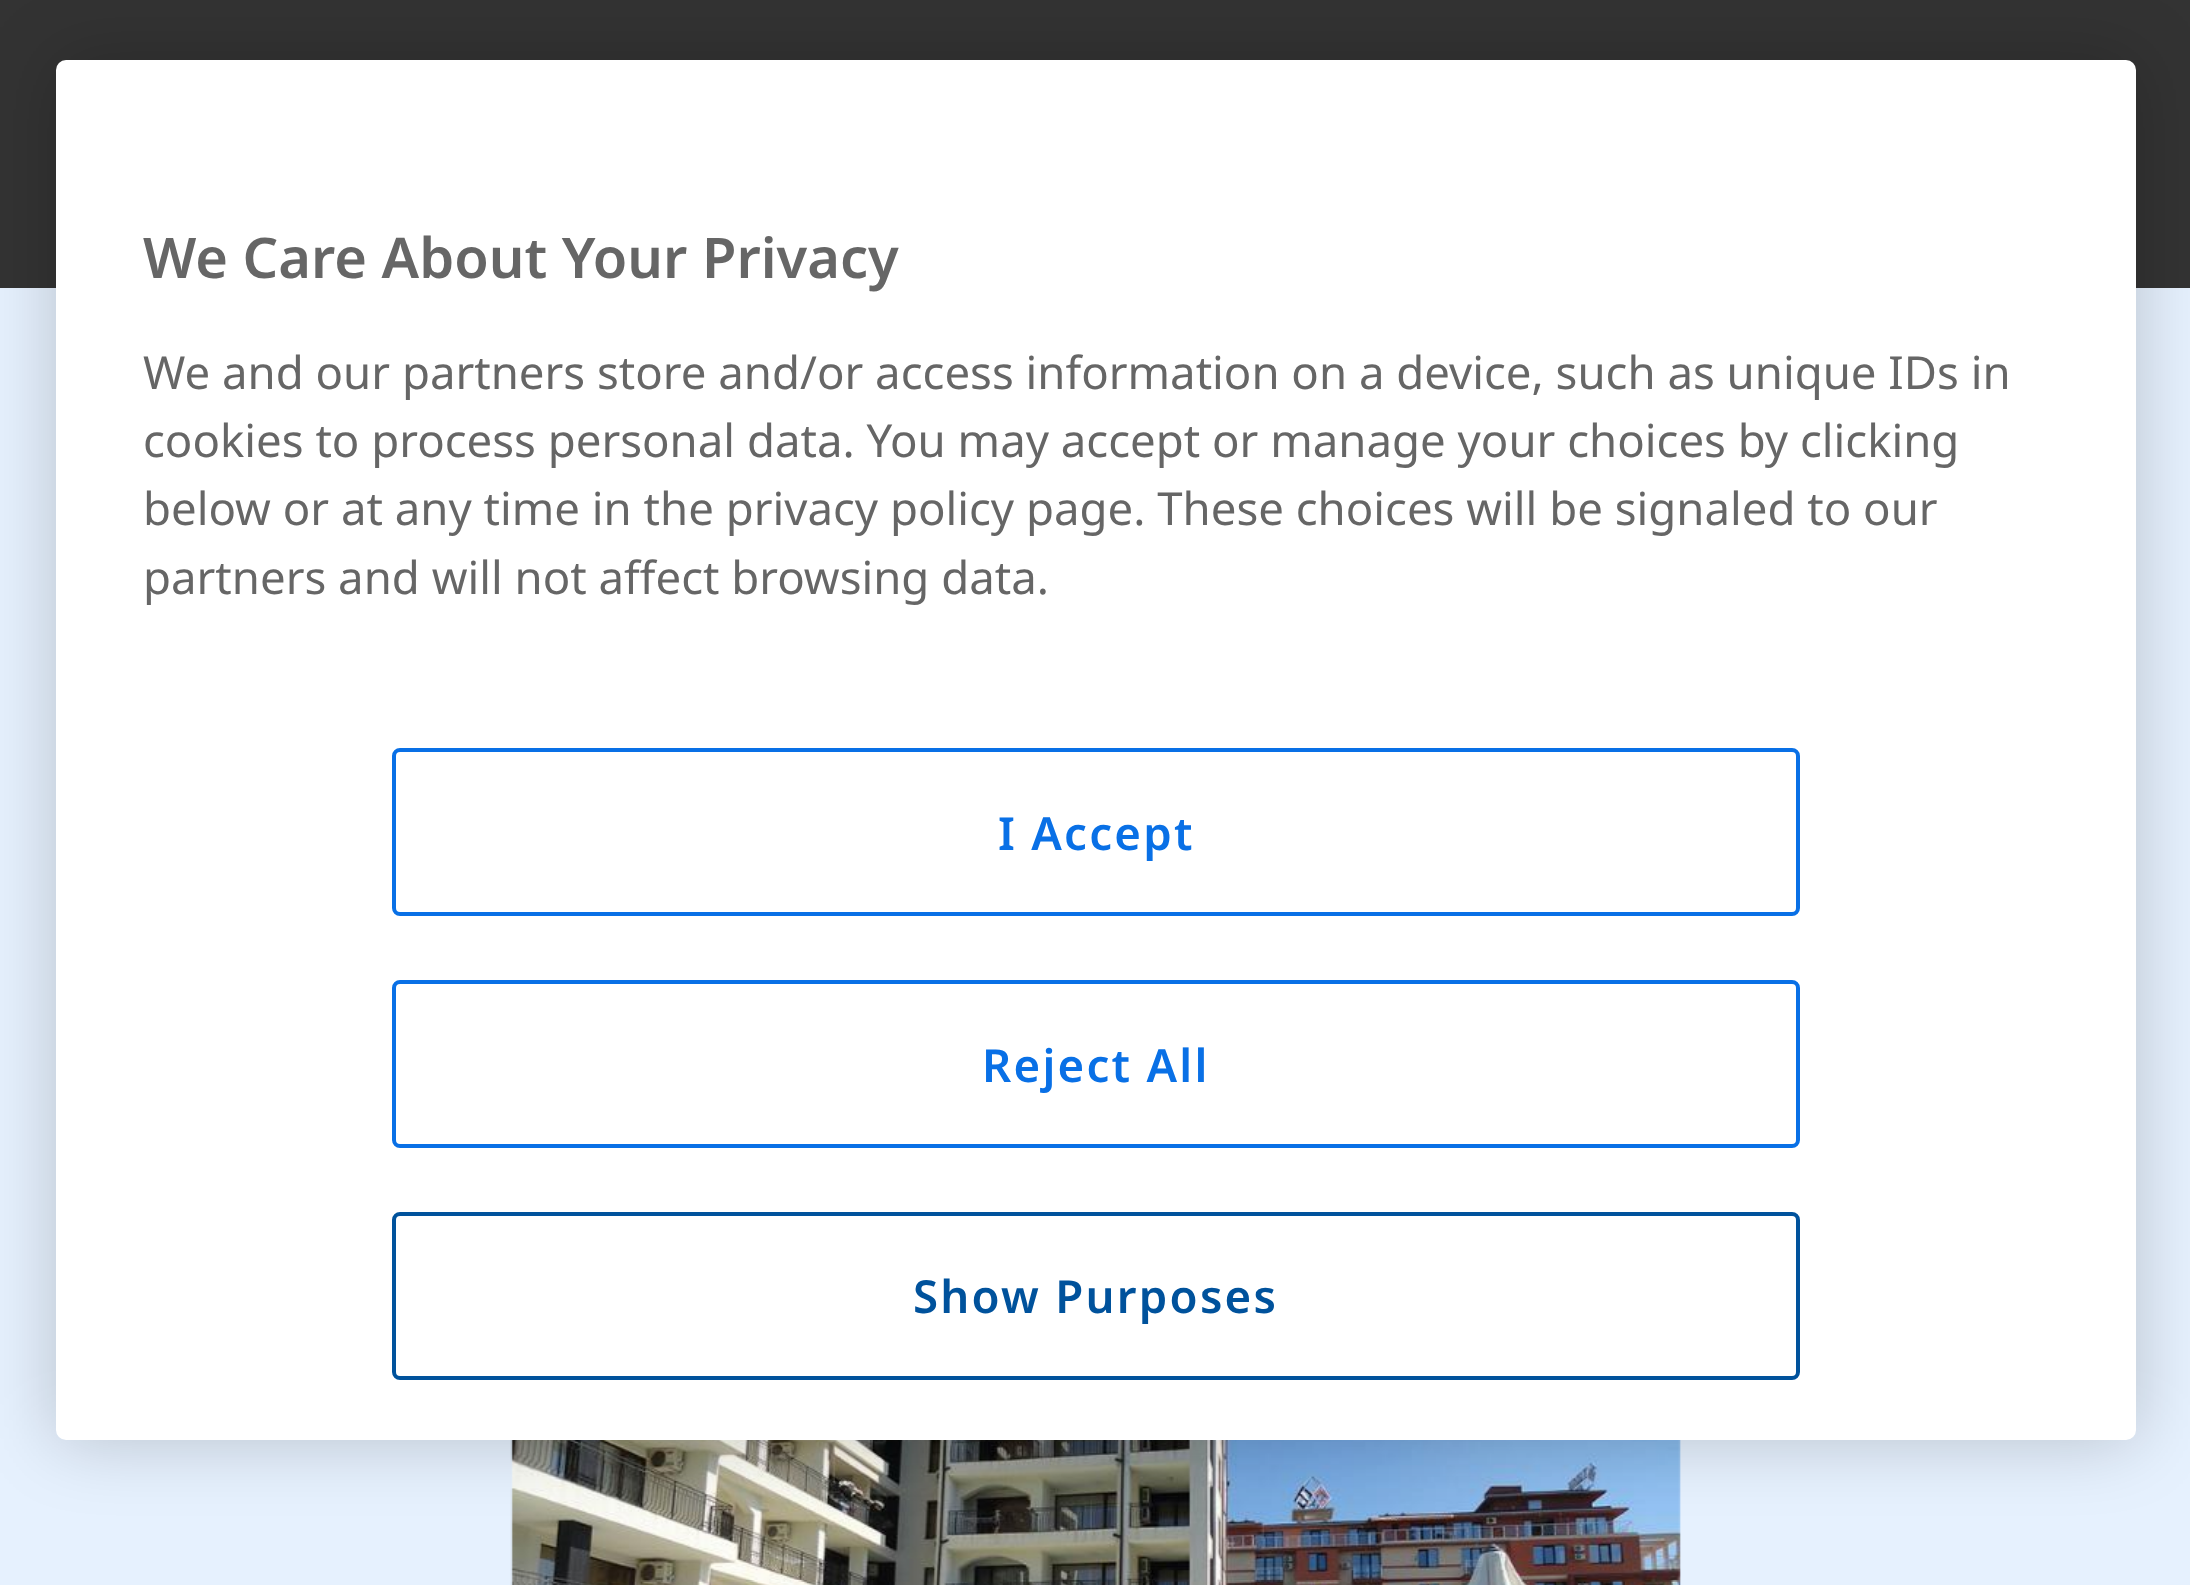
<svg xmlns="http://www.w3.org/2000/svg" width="2190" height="1585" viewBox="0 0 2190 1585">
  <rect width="100%" height="100%" fill="#e6f1fe"/>
  <path d="M0 0h2190v288H0z" fill="#333"/>
  <image x="510" y="1440" width="1171" height="145" href="img/1.png"/>
  <rect x="56" y="60" width="2080" height="1380" rx="10" fill="#00000033" filter="blur(36px)"/>
  <rect x="56" y="60" width="2080" height="1380" rx="10" fill="#fff"/>
  <rect x="394" y="750" width="1404" height="164" rx="6" fill="none" stroke="#0970e6" stroke-width="4"/>
  <rect x="394" y="982" width="1404" height="164" rx="6" fill="none" stroke="#0970e6" stroke-width="4"/>
  <rect x="394" y="1214" width="1404" height="164" rx="6" fill="none" stroke="#00529c" stroke-width="4"/>
  <text x="143" y="278" font-family="Noto Sans" font-size="56" font-weight="600" fill="#666">We Care About Your Privacy</text>
  <g font-family="Noto Sans" font-size="45.55" fill="#666">
    <text x="143" y="389">We and our partners store and/or access information on a device, such as unique IDs in</text>
    <text x="143" y="457">cookies to process personal data. You may accept or manage your choices by clicking</text>
    <text x="143" y="525">below or at any time in the privacy policy page. These choices will be signaled to our</text>
    <text x="143" y="594">partners and will not affect browsing data.</text>
  </g>
  <g font-family="Noto Sans" font-size="45.55" font-weight="600" letter-spacing="2.25" fill="#0970e6">
    <text x="998" y="850">I Accept</text>
    <text x="982" y="1082">Reject All</text>
  </g>
  <text x="913" y="1313" font-family="Noto Sans" font-size="45.55" font-weight="600" letter-spacing="2.25" fill="#00529c">Show Purposes</text>
</svg>
